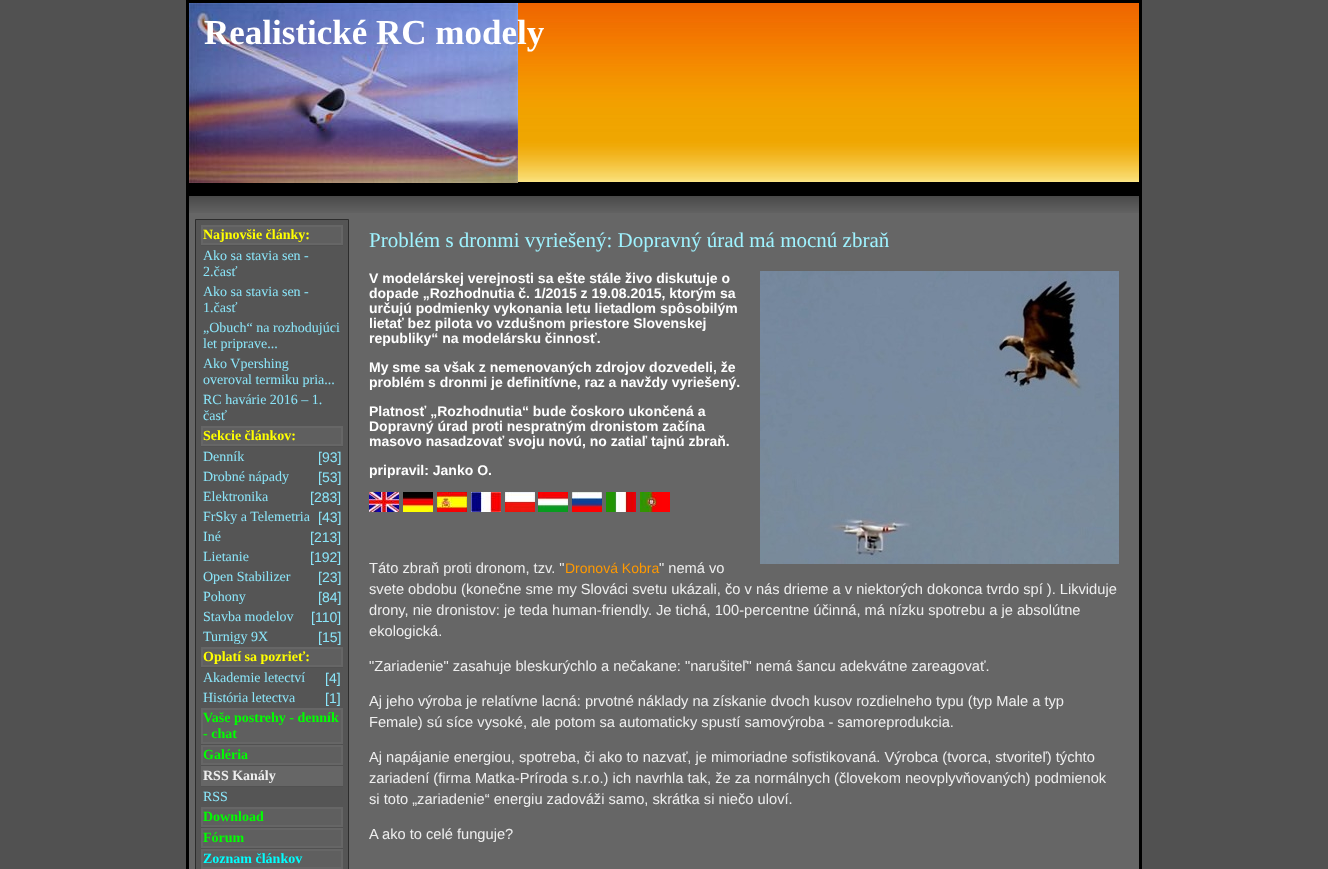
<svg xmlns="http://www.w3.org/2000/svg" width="1328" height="869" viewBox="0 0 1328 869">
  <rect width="100%" height="100%" fill="#515151"/>
  <path d="M189 213h950v656H189z" fill="#666"/>
  <image x="189" y="3" width="950" height="210" href="img/1.png"/>
  <path d="M187.5 1.5h953v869H187.5z" fill="none" stroke="#000" stroke-width="3"/>
  <image x="189" y="3" width="329" height="180" href="img/2.png"/>
  <path d="M195.5 219.5h153v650H195.5z" fill="#555" stroke="#2d2d2d"/>
  <path d="M201 225h142v20H201z" fill="#666"/>
  <path d="M201 245h142v1H201z" fill="#515151"/>
  <path d="M203 227h138v16H203z" fill="#5f5f5f"/>
  <path d="M201 426h142v20H201z" fill="#666"/>
  <path d="M201 446h142v1H201z" fill="#515151"/>
  <path d="M203 428h138v16H203z" fill="#5f5f5f"/>
  <path d="M201 647h142v20H201z" fill="#666"/>
  <path d="M201 667h142v1H201z" fill="#515151"/>
  <path d="M203 649h138v16H203z" fill="#5f5f5f"/>
  <path d="M201 708h142v36H201z" fill="#666"/>
  <path d="M201 744h142v1H201z" fill="#515151"/>
  <path d="M203 710h138v32H203z" fill="#5f5f5f"/>
  <path d="M201 745h142v20H201z" fill="#666"/>
  <path d="M201 765h142v1H201z" fill="#515151"/>
  <path d="M203 747h138v16H203z" fill="#5f5f5f"/>
  <path d="M201 766h142v20H201z" fill="#666"/>
  <path d="M201 786h142v1H201z" fill="#515151"/>
  <path d="M201 807h142v20H201z" fill="#666"/>
  <path d="M201 827h142v1H201z" fill="#515151"/>
  <path d="M203 809h138v16H203z" fill="#5f5f5f"/>
  <path d="M201 828h142v20H201z" fill="#666"/>
  <path d="M201 848h142v1H201z" fill="#515151"/>
  <path d="M203 830h138v16H203z" fill="#5f5f5f"/>
  <path d="M201 849h142v20H201z" fill="#666"/>
  <path d="M203 851h138v16H203z" fill="#5f5f5f"/>
  <image x="760" y="271" width="359" height="293" href="img/3.png"/>
  <image x="369" y="492" width="30" height="20" href="img/4.png"/>
  <image x="403" y="492" width="30" height="20" href="img/5.png"/>
  <image x="437" y="492" width="30" height="20" href="img/6.png"/>
  <image x="471" y="492" width="30" height="20" href="img/7.png"/>
  <image x="505" y="492" width="30" height="20" href="img/8.png"/>
  <image x="538" y="492" width="30" height="20" href="img/9.png"/>
  <image x="572" y="492" width="30" height="20" href="img/10.png"/>
  <image x="606" y="492" width="30" height="20" href="img/11.png"/>
  <image x="640" y="492" width="30" height="20" href="img/12.png"/>
  <text x="204" y="44" font-family="Liberation Serif" font-size="35" font-weight="bold" fill="#fff">Realistické RC modely</text>
  <text x="203" y="239" font-family="Liberation Serif" font-size="14" font-weight="bold" fill="#ff0">Najnovšie články:</text>
  <g font-family="Liberation Serif" font-size="14" fill="#8be6fa">
    <text x="203" y="260">Ako sa stavia sen -</text>
    <text x="203" y="276">2.časť</text>
    <text x="203" y="296">Ako sa stavia sen -</text>
    <text x="203" y="312">1.časť</text>
    <text x="203" y="332">„Obuch“ na rozhodujúci</text>
    <text x="203" y="348">let priprave...</text>
    <text x="203" y="368">Ako Vpershing</text>
    <text x="203" y="384">overoval termiku pria...</text>
    <text x="203" y="404">RC havárie 2016 – 1.</text>
    <text x="203" y="420">časť</text>
  </g>
  <text x="203" y="440" font-family="Liberation Serif" font-size="14" font-weight="bold" fill="#ff0">Sekcie článkov:</text>
  <text x="203" y="461" font-family="Liberation Serif" font-size="14" fill="#8be6fa">Denník</text>
  <text x="318" y="462" font-family="Liberation Sans" font-size="14" fill="#8be6fa">[93]</text>
  <text x="203" y="481" font-family="Liberation Serif" font-size="14" fill="#8be6fa">Drobné nápady</text>
  <text x="318" y="482" font-family="Liberation Sans" font-size="14" fill="#8be6fa">[53]</text>
  <text x="203" y="501" font-family="Liberation Serif" font-size="14" fill="#8be6fa">Elektronika</text>
  <text x="310" y="502" font-family="Liberation Sans" font-size="14" fill="#8be6fa">[283]</text>
  <text x="203" y="521" font-family="Liberation Serif" font-size="14" fill="#8be6fa">FrSky a Telemetria</text>
  <text x="318" y="522" font-family="Liberation Sans" font-size="14" fill="#8be6fa">[43]</text>
  <text x="203" y="541" font-family="Liberation Serif" font-size="14" fill="#8be6fa">Iné</text>
  <text x="310" y="542" font-family="Liberation Sans" font-size="14" fill="#8be6fa">[213]</text>
  <text x="203" y="561" font-family="Liberation Serif" font-size="14" fill="#8be6fa">Lietanie</text>
  <text x="310" y="562" font-family="Liberation Sans" font-size="14" fill="#8be6fa">[192]</text>
  <text x="203" y="581" font-family="Liberation Serif" font-size="14" fill="#8be6fa">Open Stabilizer</text>
  <text x="318" y="582" font-family="Liberation Sans" font-size="14" fill="#8be6fa">[23]</text>
  <text x="203" y="601" font-family="Liberation Serif" font-size="14" fill="#8be6fa">Pohony</text>
  <text x="318" y="602" font-family="Liberation Sans" font-size="14" fill="#8be6fa">[84]</text>
  <text x="203" y="621" font-family="Liberation Serif" font-size="14" fill="#8be6fa">Stavba modelov</text>
  <text x="311" y="622" font-family="Liberation Sans" font-size="14" fill="#8be6fa">[110]</text>
  <text x="203" y="641" font-family="Liberation Serif" font-size="14" fill="#8be6fa">Turnigy 9X</text>
  <text x="318" y="642" font-family="Liberation Sans" font-size="14" fill="#8be6fa">[15]</text>
  <text x="203" y="661" font-family="Liberation Serif" font-size="14" font-weight="bold" fill="#ff0">Oplatí sa pozrieť:</text>
  <text x="203" y="682" font-family="Liberation Serif" font-size="14" fill="#8be6fa">Akademie letectví</text>
  <text x="325" y="683" font-family="Liberation Sans" font-size="14" fill="#8be6fa">[4]</text>
  <text x="203" y="702" font-family="Liberation Serif" font-size="14" fill="#8be6fa">História letectva</text>
  <text x="325" y="703" font-family="Liberation Sans" font-size="14" fill="#8be6fa">[1]</text>
  <g font-family="Liberation Serif" font-size="14" font-weight="bold" fill="#0f0">
    <text x="203" y="722">Vaše postrehy - denník</text>
    <text x="203" y="738">- chat</text>
    <text x="203" y="759">Galéria</text>
  </g>
  <text x="203" y="780" font-family="Liberation Serif" font-size="14" font-weight="bold" fill="#eee">RSS Kanály</text>
  <text x="203" y="801" font-family="Liberation Serif" font-size="14" fill="#8be6fa">RSS</text>
  <g font-family="Liberation Serif" font-size="14" font-weight="bold" fill="#0f0">
    <text x="203" y="821">Download</text>
    <text x="203" y="842">Fórum</text>
  </g>
  <text x="203" y="863" font-family="Liberation Serif" font-size="14" font-weight="bold" fill="#0ff">Zoznam článkov</text>
  <text x="369" y="247" font-family="Liberation Serif" font-size="21" fill="#9ff3ff">Problém s dronmi vyriešený: Dopravný úrad má mocnú zbraň</text>
  <g font-family="Liberation Sans" font-size="14" font-weight="bold" fill="#fff">
    <text x="369" y="283">V modelárskej verejnosti sa ešte stále živo diskutuje o</text>
    <text x="369" y="298">dopade „Rozhodnutia č. 1/2015 z 19.08.2015, ktorým sa</text>
    <text x="369" y="313">určujú podmienky vykonania letu lietadlom spôsobilým</text>
    <text x="369" y="328">lietať bez pilota vo vzdušnom priestore Slovenskej</text>
    <text x="369" y="343">republiky“ na modelársku činnosť.</text>
    <text x="369" y="372">My sme sa však z nemenovaných zdrojov dozvedeli, že</text>
    <text x="369" y="387">problém s dronmi je definitívne, raz a navždy vyriešený.</text>
    <text x="369" y="416">Platnosť „Rozhodnutia“ bude čoskoro ukončená a</text>
    <text x="369" y="431">Dopravný úrad proti nespratným dronistom začína</text>
    <text x="369" y="446">masovo nasadzovať svoju novú, no zatiaľ tajnú zbraň.</text>
    <text x="369" y="475">pripravil: Janko O.</text>
  </g>
  <text x="369" y="573" font-family="Liberation Sans" font-size="14.67" fill="#eee">Táto zbraň proti dronom, tzv. "</text>
  <text x="565" y="573" font-family="Liberation Sans" font-size="14" fill="#f90">Dronová Kobra</text>
  <g font-family="Liberation Sans" font-size="14.67" fill="#eee">
    <text x="659" y="573">" nemá vo</text>
    <text x="369" y="594">svete obdobu (konečne sme my Slováci svetu ukázali, čo v nás drieme a v niektorých dokonca tvrdo spí ). Likviduje</text>
    <text x="369" y="615">drony, nie dronistov: je teda human-friendly. Je tichá, 100-percentne účinná, má nízku spotrebu a je absolútne</text>
    <text x="369" y="636">ekologická.</text>
    <text x="369" y="671">"Zariadenie" zasahuje bleskurýchlo a nečakane: "narušiteľ" nemá šancu adekvátne zareagovať.</text>
    <text x="369" y="706">Aj jeho výroba je relatívne lacná: prvotné náklady na získanie dvoch kusov rozdielneho typu (typ Male a typ</text>
    <text x="369" y="727">Female) sú síce vysoké, ale potom sa automaticky spustí samovýroba - samoreprodukcia.</text>
    <text x="369" y="762">Aj napájanie energiou, spotreba, či ako to nazvať, je mimoriadne sofistikovaná. Výrobca (tvorca, stvoriteľ) týchto</text>
    <text x="369" y="783">zariadení (firma Matka-Príroda s.r.o.) ich navrhla tak, že za normálnych (človekom neovplyvňovaných) podmienok</text>
    <text x="369" y="804">si toto „zariadenie“ energiu zadováži samo, skrátka si niečo uloví.</text>
    <text x="369" y="839">A ako to celé funguje?</text>
  </g>
</svg>
